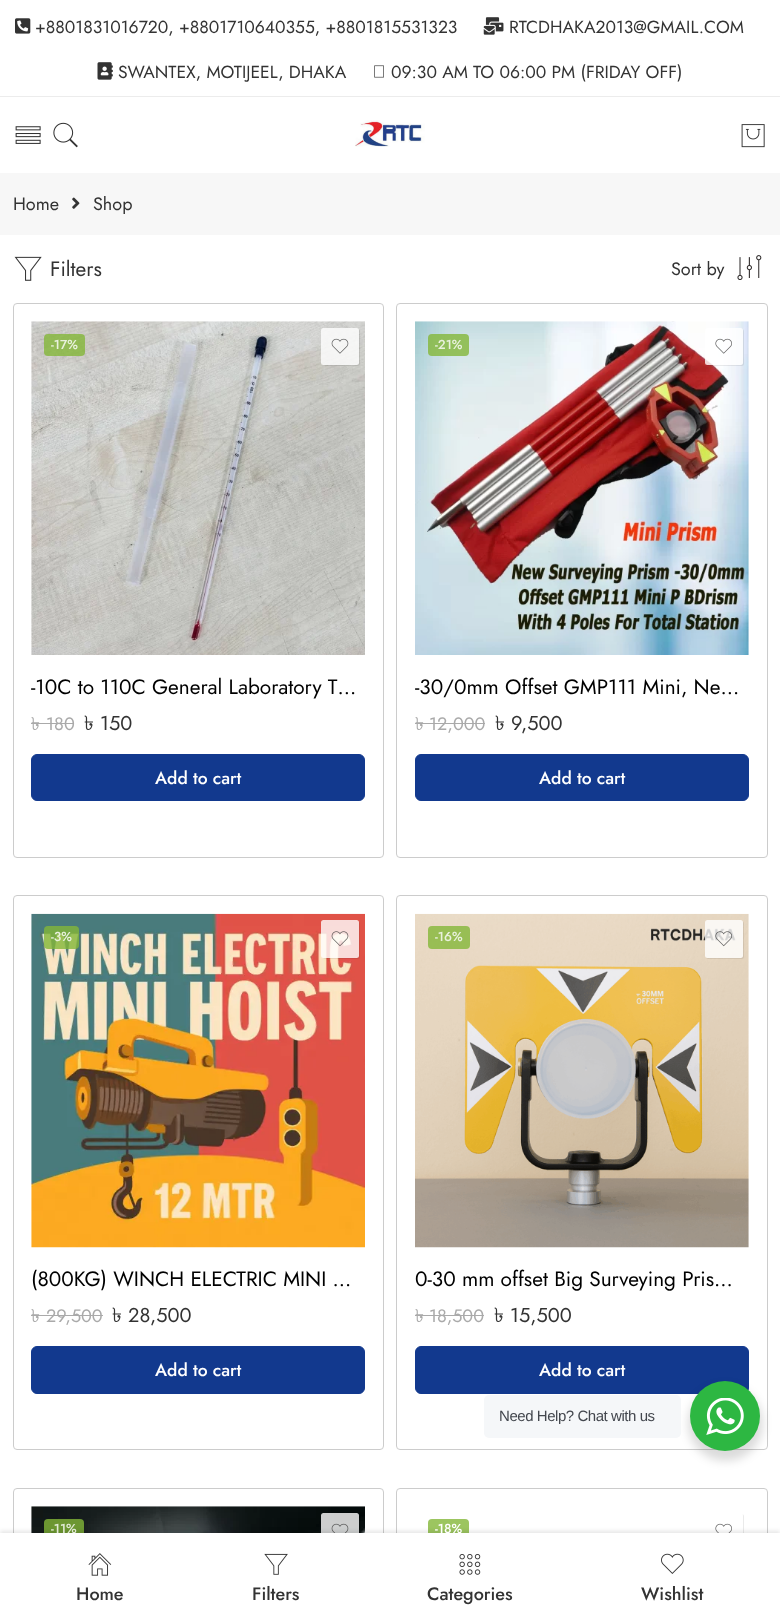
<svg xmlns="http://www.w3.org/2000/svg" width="780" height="1619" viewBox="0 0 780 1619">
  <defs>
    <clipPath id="clip1"><path d="M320 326H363V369H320ZM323.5 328H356.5C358 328 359 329 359 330.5V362.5C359 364 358 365 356.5 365H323.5C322 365 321 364 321 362.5V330.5C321 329 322 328 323.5 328Z" clip-rule="evenodd"/></clipPath>
    <clipPath id="clip2"><path d="M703 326H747V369H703ZM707.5 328H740.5C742 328 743 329 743 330.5V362.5C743 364 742 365 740.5 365H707.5C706 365 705 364 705 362.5V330.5C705 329 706 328 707.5 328Z" clip-rule="evenodd"/></clipPath>
    <clipPath id="clip3"><path d="M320 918H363V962H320ZM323.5 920H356.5C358 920 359 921 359 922.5V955.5C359 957 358 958 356.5 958H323.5C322 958 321 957 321 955.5V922.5C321 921 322 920 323.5 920Z" clip-rule="evenodd"/></clipPath>
    <clipPath id="clip4"><path d="M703 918H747V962H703ZM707.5 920H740.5C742 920 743 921 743 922.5V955.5C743 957 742 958 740.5 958H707.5C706 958 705 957 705 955.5V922.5C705 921 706 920 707.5 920Z" clip-rule="evenodd"/></clipPath>
    <clipPath id="clip5"><path d="M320 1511H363V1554H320ZM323.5 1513H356.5C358 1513 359 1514 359 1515.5V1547.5C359 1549 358 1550 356.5 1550H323.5C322 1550 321 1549 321 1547.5V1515.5C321 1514 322 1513 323.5 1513Z" clip-rule="evenodd"/></clipPath>
  </defs>
  <rect width="100%" height="100%" fill="#fff"/>
  <path d="M0 96h780v1H0z" fill="#ececec"/>
  <image x="15" y="18" width="16" height="16" href="img/1.png"/>
  <image x="483" y="17" width="21" height="18" href="img/2.png"/>
  <image x="97" y="62" width="16" height="18" href="img/3.png"/>
  <image x="374" y="65" width="10" height="13" href="img/4.png"/>
  <image x="15" y="126" width="26" height="18" href="img/5.png"/>
  <image x="53" y="122" width="25" height="26" href="img/6.png"/>
  <image x="355" y="120" width="70" height="27" href="img/7.png"/>
  <image x="741" y="124" width="24" height="24" href="img/8.png"/>
  <path d="M0 173h780v62H0z" fill="#f7f7f7"/>
  <image x="72" y="197" width="8" height="12" href="img/9.png"/>
  <image x="14" y="256" width="28" height="25" href="img/10.png"/>
  <image x="737" y="255" width="25" height="25" href="img/11.png"/>
  <rect x="13.5" y="303.5" width="370" height="554" rx="3.5" fill="none" stroke="#ccc"/>
  <image x="31" y="321" width="334" height="334" href="img/12.png"/>
  <rect x="44" y="334" width="41" height="22" rx="4" fill="#83b738cc"/>
  <g clip-path="url(#clip1)">
    <rect x="323" y="329" width="37" height="37" rx="2.5" fill="#00000014" filter="blur(0.5px)"/>
  </g>
  <rect x="321" y="328" width="38" height="37" rx="2.5" fill="#ffffffcc"/>
  <image x="331" y="338" width="18" height="16" href="img/13.png"/>
  <path d="M31 723h14v1H31z" fill="#aaa"/>
  <path d="M45 723h29v1H45z" fill="#aaa"/>
  <rect x="31.5" y="754.5" width="333" height="46" rx="5.5" fill="#12398e" stroke="#12398e"/>
  <rect x="396.5" y="303.5" width="371" height="554" rx="3.5" fill="none" stroke="#ccc"/>
  <image x="415" y="321" width="334" height="334" href="img/14.png"/>
  <rect x="428" y="334" width="41" height="22" rx="4" fill="#83b738cc"/>
  <g clip-path="url(#clip2)">
    <rect x="706" y="329" width="38" height="37" rx="2.5" fill="#00000014" filter="blur(0.5px)"/>
  </g>
  <rect x="705" y="328" width="38" height="37" rx="2.5" fill="#ffffffcc"/>
  <image x="715" y="338" width="17" height="16" href="img/15.png"/>
  <path d="M415 723h14v1H415z" fill="#aaa"/>
  <path d="M429 723h56v1H429z" fill="#aaa"/>
  <rect x="415.5" y="754.5" width="333" height="46" rx="5.5" fill="#12398e" stroke="#12398e"/>
  <rect x="13.5" y="895.5" width="370" height="554" rx="3.5" fill="none" stroke="#ccc"/>
  <image x="31" y="913" width="334" height="335" href="img/16.png"/>
  <rect x="44" y="926" width="35" height="23" rx="4" fill="#83b738cc"/>
  <g clip-path="url(#clip3)">
    <rect x="323" y="921" width="37" height="38" rx="2.5" fill="#00000014" filter="blur(0.5px)"/>
  </g>
  <rect x="321" y="920" width="38" height="38" rx="2.5" fill="#ffffffcc"/>
  <image x="331" y="931" width="18" height="16" href="img/17.png"/>
  <path d="M31 1315h14v1H31z" fill="#aaa"/>
  <path d="M45 1315h58v1H45z" fill="#aaa"/>
  <rect x="31.5" y="1346.5" width="333" height="47" rx="5.5" fill="#12398e" stroke="#12398e"/>
  <rect x="396.5" y="895.5" width="371" height="554" rx="3.5" fill="none" stroke="#ccc"/>
  <image x="415" y="913" width="334" height="335" href="img/18.png"/>
  <rect x="428" y="926" width="42" height="23" rx="4" fill="#83b738cc"/>
  <g clip-path="url(#clip4)">
    <rect x="706" y="921" width="38" height="38" rx="2.5" fill="#00000014" filter="blur(0.5px)"/>
  </g>
  <rect x="705" y="920" width="38" height="38" rx="2.5" fill="#ffffffcc"/>
  <image x="715" y="931" width="17" height="16" href="img/19.png"/>
  <path d="M415 1315h14v1H415z" fill="#aaa"/>
  <path d="M429 1315h55v1H429z" fill="#aaa"/>
  <rect x="415.5" y="1346.5" width="333" height="47" rx="5.5" fill="#12398e" stroke="#12398e"/>
  <rect x="13.5" y="1488.5" width="370" height="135" rx="3.5" fill="none" stroke="#ccc"/>
  <image x="31" y="1506" width="334" height="27" href="img/20.png"/>
  <rect x="44" y="1519" width="40" height="22" rx="4" fill="#83b738cc"/>
  <g clip-path="url(#clip5)">
    <rect x="323" y="1514" width="37" height="37" rx="2.5" fill="#00000014" filter="blur(0.5px)"/>
  </g>
  <rect x="321" y="1513" width="38" height="37" rx="2.5" fill="#ffffffcc"/>
  <image x="331" y="1523" width="18" height="10" href="img/21.png"/>
  <rect x="396.5" y="1488.5" width="371" height="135" rx="3.5" fill="none" stroke="#ccc"/>
  <rect x="428" y="1519" width="41" height="22" rx="4" fill="#9cc560"/>
  <rect x="706" y="1514" width="38" height="37" rx="2.5" fill="#3333331a" filter="blur(0.5px)"/>
  <rect x="705" y="1513" width="38" height="37" rx="2.5" fill="#fff"/>
  <image x="715" y="1523" width="17" height="10" href="img/22.png"/>
  <rect x="688" y="1386" width="75" height="75" rx="37.5" fill="#00000024" filter="blur(5px)"/>
  <rect x="484" y="1395" width="197" height="43" rx="5" fill="#f5f7f9"/>
  <circle cx="725" cy="1416" r="35" fill="#2db742"/>
  <image x="706" y="1398" width="38" height="37" href="img/23.png"/>
  <path d="M0 1531h780v88H0z" fill="#0000001a" filter="blur(2px)"/>
  <g font-family="Jost" font-size="17.5" fill="#333">
    <text x="35" y="33">+8801831016720, +8801710640355, +8801815531323</text>
    <text x="509" y="33">RTCDHAKA2013@GMAIL.COM</text>
    <text x="118" y="78">SWANTEX, MOTIJEEL, DHAKA</text>
    <text x="391" y="78">09:30 AM TO 06:00 PM (FRIDAY OFF)</text>
  </g>
  <g font-family="Jost" font-size="18" fill="#333">
    <text x="13" y="210">Home</text>
    <text x="93" y="210">Shop</text>
  </g>
  <text x="50" y="276" font-family="Jost" font-size="20.8" fill="#333">Filters</text>
  <text x="671" y="275" font-family="Jost" font-size="18" fill="#333">Sort by</text>
  <text x="51" y="349" font-family="Jost" font-size="13" font-weight="500" fill="#e9f1dd">-17%</text>
  <text x="31" y="694" font-family="Jost" font-size="20.8" fill="#000">-10C to 110C General Laboratory T…</text>
  <text x="31" y="730" font-family="Lohit Bengali" font-size="18" fill="#aaa">৳</text>
  <text x="46" y="730" font-family="Jost" font-size="18" fill="#aaa">180</text>
  <text x="84" y="730" font-family="Lohit Bengali" font-size="20" fill="#333">৳</text>
  <text x="100" y="730" font-family="Jost" font-size="20" fill="#333">150</text>
  <text x="155" y="784" font-family="Jost" font-size="17.5" font-weight="500" fill="#fff">Add to cart</text>
  <text x="435" y="349" font-family="Jost" font-size="13" font-weight="500" fill="#e9f1dd">-21%</text>
  <text x="415" y="694" font-family="Jost" font-size="20.8" fill="#000">-30/0mm Offset GMP111 Mini, Ne…</text>
  <text x="415" y="730" font-family="Lohit Bengali" font-size="18" fill="#aaa">৳</text>
  <text x="429" y="730" font-family="Jost" font-size="18" fill="#aaa">12,000</text>
  <text x="495" y="730" font-family="Lohit Bengali" font-size="20" fill="#333">৳</text>
  <text x="511" y="730" font-family="Jost" font-size="20" fill="#333">9,500</text>
  <text x="539" y="784" font-family="Jost" font-size="17.5" font-weight="500" fill="#fff">Add to cart</text>
  <text x="51" y="941" font-family="Jost" font-size="13" font-weight="500" fill="#e9f1dd">-3%</text>
  <text x="31" y="1286" font-family="Jost" font-size="20.8" fill="#000">(800KG) WINCH ELECTRIC MINI …</text>
  <text x="31" y="1322" font-family="Lohit Bengali" font-size="18" fill="#aaa">৳</text>
  <text x="46" y="1322" font-family="Jost" font-size="18" fill="#aaa">29,500</text>
  <text x="112" y="1322" font-family="Lohit Bengali" font-size="20" fill="#333">৳</text>
  <text x="128" y="1322" font-family="Jost" font-size="20" fill="#333">28,500</text>
  <text x="155" y="1376" font-family="Jost" font-size="17.5" font-weight="500" fill="#fff">Add to cart</text>
  <text x="435" y="941" font-family="Jost" font-size="13" font-weight="500" fill="#e9f1dd">-16%</text>
  <text x="415" y="1286" font-family="Jost" font-size="20.8" fill="#000">0-30 mm offset Big Surveying Pris…</text>
  <text x="415" y="1322" font-family="Lohit Bengali" font-size="18" fill="#aaa">৳</text>
  <text x="429" y="1322" font-family="Jost" font-size="18" fill="#aaa">18,500</text>
  <text x="494" y="1322" font-family="Lohit Bengali" font-size="20" fill="#333">৳</text>
  <text x="510" y="1322" font-family="Jost" font-size="20" fill="#333">15,500</text>
  <text x="539" y="1376" font-family="Jost" font-size="17.5" font-weight="500" fill="#fff">Add to cart</text>
  <text x="51" y="1533" font-family="Jost" font-size="13" font-weight="500" fill="#e2ead6">-11%</text>
  <text x="435" y="1533" font-family="Jost" font-size="13" font-weight="500" fill="#fff">-18%</text>
  <text x="499" y="1421" font-family="Liberation Sans" font-size="15" letter-spacing="-0.45" fill="#43474e">Need Help? Chat with us</text>
  <path d="M0 1533h780v86H0z" fill="#fff"/>
  <image x="88" y="1553" width="24" height="23" href="img/24.png"/>
  <text x="76" y="1600" font-family="Jost" font-size="18" font-weight="500" fill="#333">Home</text>
  <image x="264" y="1553" width="24" height="22" href="img/25.png"/>
  <text x="252" y="1600" font-family="Jost" font-size="18" font-weight="500" fill="#333">Filters</text>
  <image x="459" y="1554" width="22" height="21" href="img/26.png"/>
  <text x="427" y="1600" font-family="Jost" font-size="18" font-weight="500" fill="#333">Categories</text>
  <image x="661" y="1553" width="23" height="21" href="img/27.png"/>
  <text x="641" y="1600" font-family="Jost" font-size="18" font-weight="500" fill="#333">Wishlist</text>
</svg>
